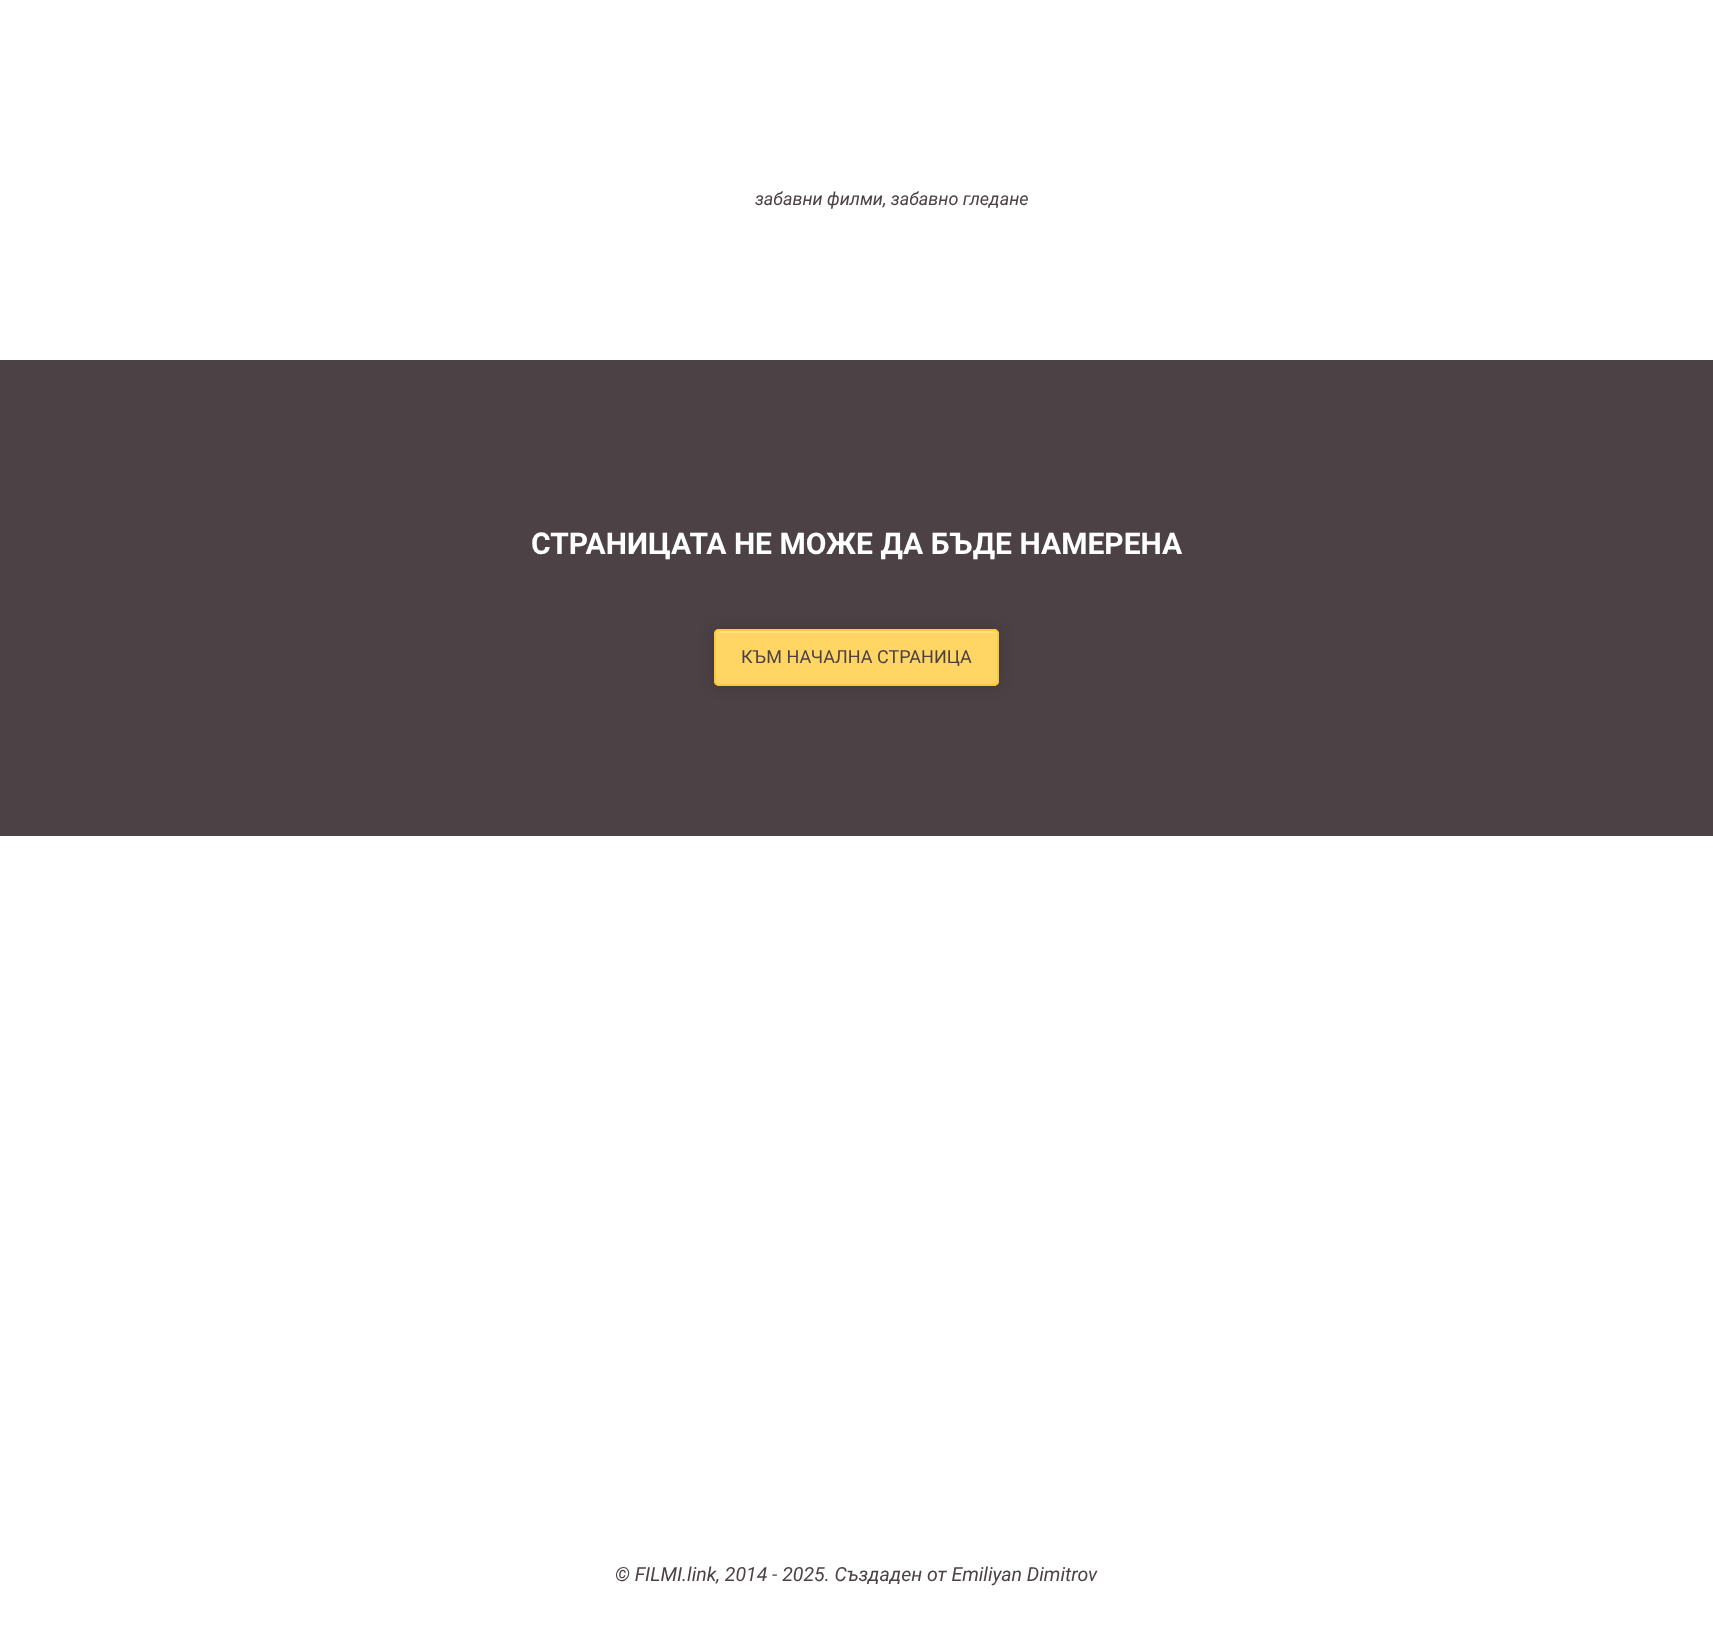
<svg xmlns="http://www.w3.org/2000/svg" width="1713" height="1625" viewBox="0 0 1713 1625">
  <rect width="100%" height="100%" fill="#fff"/>
  <path d="M0 360h1713v476H0z" fill="#4c4145"/>
  <rect x="714" y="629" width="285" height="57" rx="5" fill="#00000029" filter="blur(7.5px)"/>
  <rect x="714" y="629" width="285" height="57" rx="5" fill="#ffd564"/>
  <path d="M718 633H994C996 633 998 634 998 636C998 634 998 631 996 630H719C716 630 716 634 716 636C716 634 717 633 718 633Z" fill="#ffdd83"/>
  <rect x="715" y="630" width="283" height="55" rx="4" fill="none" stroke="#ffc936" stroke-width="2"/>
  <text x="755" y="205" font-family="Roboto" font-size="18" font-style="italic" fill="#4c4145">забавни филми, забавно гледане</text>
  <text x="531" y="554" font-family="Roboto" font-size="30" font-weight="bold" fill="#fff">СТРАНИЦАТА НЕ МОЖЕ ДА БЪДЕ НАМЕРЕНА</text>
  <text x="741" y="663" font-family="Roboto" font-size="18" fill="#4c4145">КЪМ НАЧАЛНА СТРАНИЦА</text>
  <text x="615" y="1581" font-family="Roboto" font-size="19.5" font-style="italic" fill="#4c4145">© FILMI.link, 2014 - 2025. Създаден от Emiliyan Dimitrov</text>
</svg>
